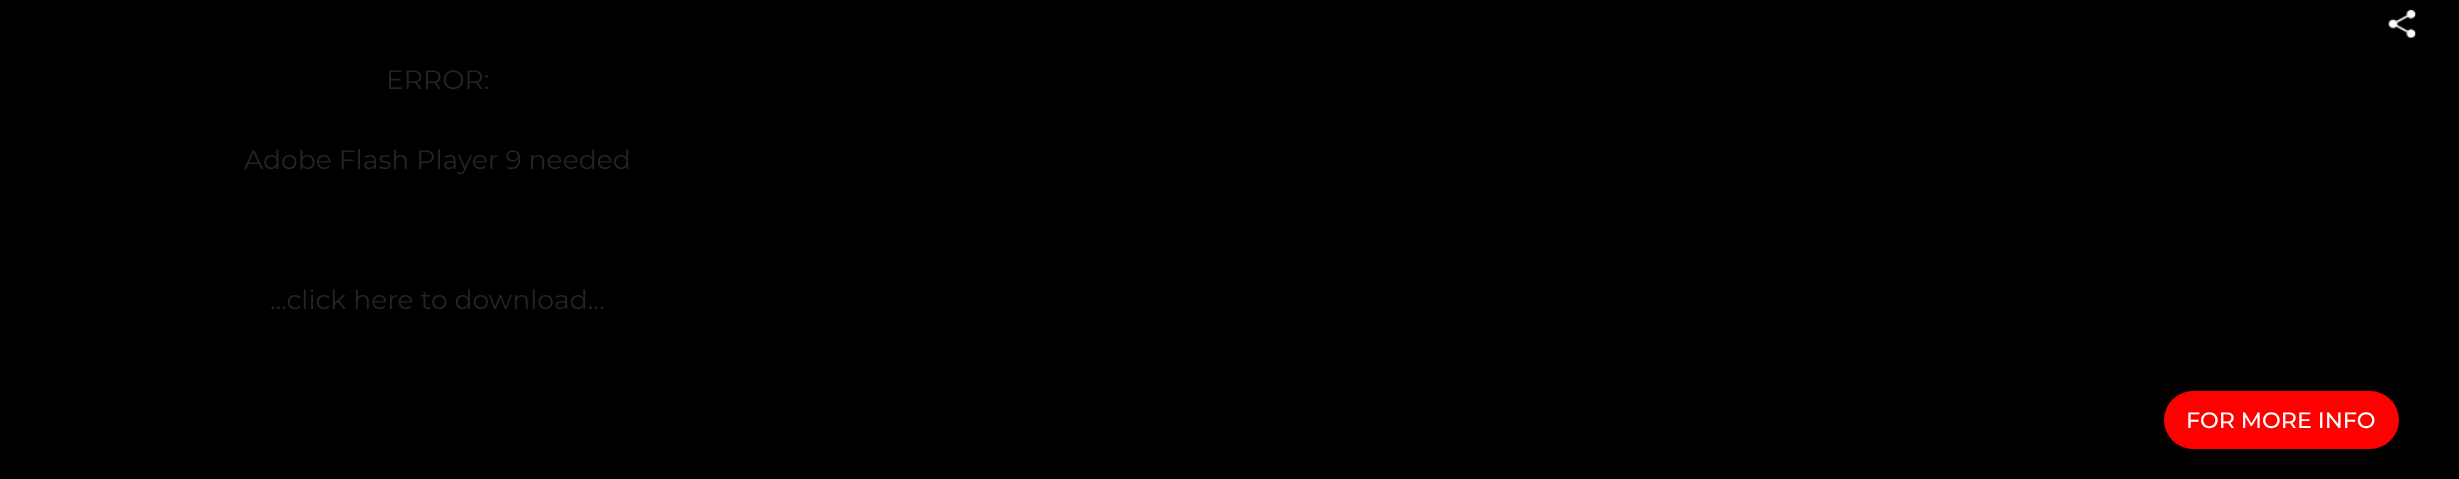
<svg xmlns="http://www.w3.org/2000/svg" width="2459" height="479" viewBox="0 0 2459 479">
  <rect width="100%" height="100%" fill="#000"/>
  <image x="2388" y="9" width="29" height="30" href="img/1.png"/>
  <rect x="2164" y="391" width="235" height="58" rx="29" fill="#f00"/>
  <g font-family="Montserrat" font-size="26.6" fill="#212529">
    <text x="386" y="89">ERROR:</text>
    <text x="244" y="169">Adobe Flash Player 9 needed</text>
    <text x="270" y="309">...click here to download...</text>
  </g>
  <text x="2186" y="428" font-family="Montserrat" font-size="22.25" font-weight="500" fill="#fff">FOR MORE INFO</text>
</svg>
